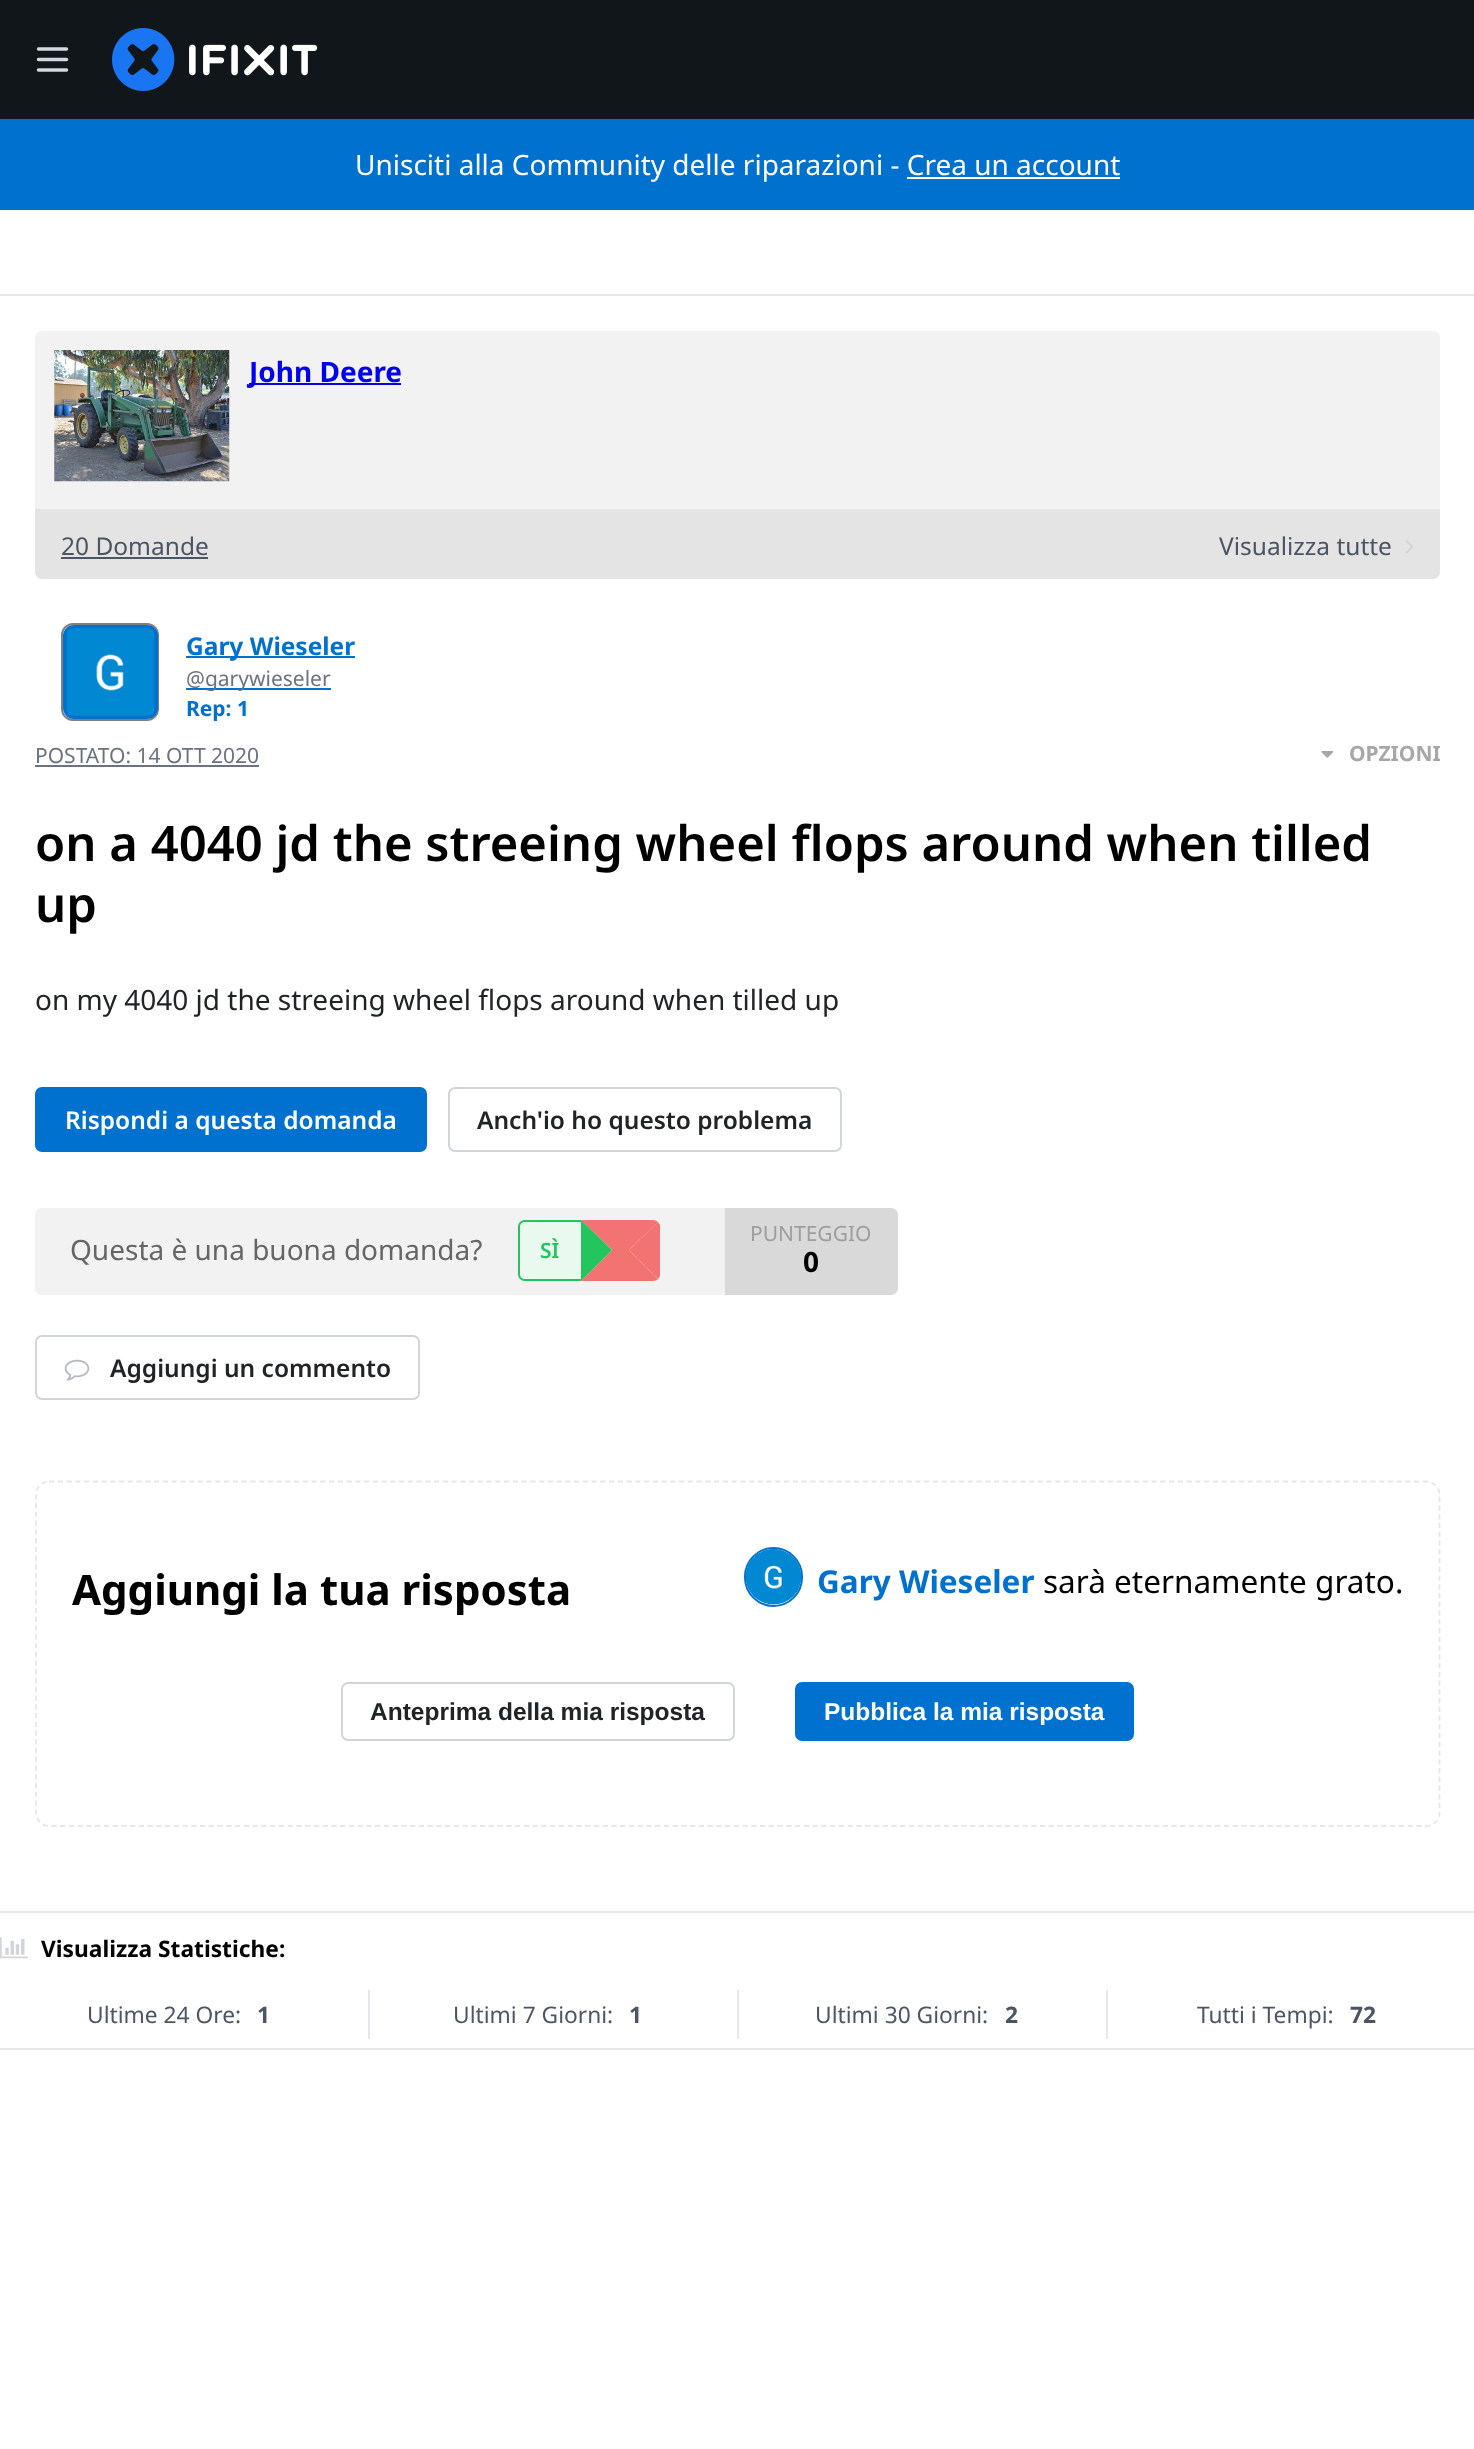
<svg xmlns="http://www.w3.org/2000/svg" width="1474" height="2449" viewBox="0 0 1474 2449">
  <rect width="100%" height="100%" fill="#fff"/>
  <path d="M0 0h1474v119H0z" fill="#11161a"/>
  <path d="M38.5 59.5H66.5M38.5 49H66.5M38.5 70H66.5" fill="none" stroke="#d2dadf" stroke-width="3.5" stroke-linecap="round" stroke-linejoin="round"/>
  <image x="112" y="28" width="206" height="63" href="img/1.png"/>
  <path d="M0 119h1474v91H0z" fill="#0071ce"/>
  <path d="M907 177h213v2H907z" fill="#fff"/>
  <path d="M0 294h1474v2H0z" fill="#e5e7eb"/>
  <rect x="35" y="331" width="1405" height="248" rx="7" fill="#f2f2f2"/>
  <image x="54" y="350" width="176" height="132" href="img/2.png"/>
  <path d="M249 383h152v2H249z" fill="#00e"/>
  <path d="M35 509H1440V572C1440 576 1437 579 1433 579H42C38 579 35 576 35 572Z" fill="#e4e4e4"/>
  <path d="M61 557h147v2H61z" fill="#4b5563"/>
  <image x="1405" y="540" width="8" height="14" href="img/3.png"/>
  <rect x="62" y="624" width="96" height="96" rx="11" fill="none" stroke="#808080" stroke-width="2"/>
  <rect x="65" y="627" width="91" height="90" rx="9" fill="none" stroke="#0071ce" stroke-width="4"/>
  <image x="66" y="628" width="88" height="88" href="img/4.png"/>
  <path d="M186 656h169v2H186z" fill="#0071ce"/>
  <path d="M186 688h145v2H186z" fill="#0071ce"/>
  <path d="M35 765h224v2H35z" fill="#6b7280"/>
  <image x="1321" y="751" width="13" height="7" href="img/5.png"/>
  <rect x="36" y="1088" width="390" height="63" rx="6" fill="#0071ce" stroke="#0071ce" stroke-width="2"/>
  <rect x="449" y="1088" width="392" height="63" rx="6" fill="none" stroke="#d1d5db" stroke-width="2"/>
  <rect x="35" y="1208" width="863" height="87" rx="7" fill="#f2f2f2"/>
  <path d="M525 1220H581V1281H525C521 1281 518 1278 518 1274V1227C518 1223 521 1220 525 1220Z" fill="#e9f9ef"/>
  <path d="M525 1220H581V1281H525C521 1281 518 1278 518 1274V1227C518 1223 521 1220 525 1220ZM525 1222H581V1279H525C522 1279 520 1277 520 1274V1227C520 1224 522 1222 525 1222Z" fill="#22c55e" fill-rule="evenodd"/>
  <path d="M658 1222C657 1221 655 1220 653 1220H581L612 1250H629Z" fill="#f37373"/>
  <path d="M660 1276L658 1279L629 1250L658 1222L660 1225Z" fill="#f37373"/>
  <path d="M658 1279L629 1250H612L581 1281H653C655 1281 657 1280 658 1279Z" fill="#f37373"/>
  <path d="M581 1281L612 1250L581 1220Z" fill="#22c55e"/>
  <path d="M725 1208H891C895 1208 898 1211 898 1215V1288C898 1292 895 1295 891 1295H725Z" fill="#0000001a"/>
  <rect x="36" y="1336" width="383" height="63" rx="6" fill="none" stroke="#d1d5db" stroke-width="2"/>
  <image x="64" y="1359" width="26" height="22" href="img/6.png"/>
  <path d="M49 1481.5H1426C1433.5 1481.5 1439.5 1487.5 1439.5 1494.5V1813C1439.5 1820 1433.5 1826 1426 1826H49C42 1826 36 1820 36 1813V1494.5C36 1487.5 42 1481.5 49 1481.5Z" fill="none" stroke="#e5e7eb" stroke-width="1.8" stroke-dasharray="5.25 3.5"/>
  <rect x="745" y="1548" width="57" height="58" rx="28.5" fill="none" stroke="#0071ce" stroke-width="2"/>
  <image x="746" y="1549" width="55" height="56" href="img/7.png"/>
  <rect x="342" y="1683" width="392" height="57" rx="6" fill="none" stroke="#d1d5db" stroke-width="2"/>
  <rect x="796" y="1683" width="337" height="57" rx="6" fill="#0071ce" stroke="#0071ce" stroke-width="2"/>
  <path d="M0 1911h1474v2H0z" fill="#e5e7eb"/>
  <path d="M0 2048h1474v2H0z" fill="#e5e7eb"/>
  <image x="0" y="1937" width="28" height="22" href="img/8.png"/>
  <path d="M368 1990h2v49H368z" fill="#e5e7eb"/>
  <path d="M737 1990h2v49H737z" fill="#e5e7eb"/>
  <path d="M1106 1990h2v49H1106z" fill="#e5e7eb"/>
  <text x="355" y="175" font-family="Noto Sans" font-size="28" fill="#fff">Unisciti alla Community delle riparazioni - Crea un account</text>
  <text x="249" y="382" font-family="Noto Sans" font-size="28" font-weight="bold" fill="#00e">John Deere</text>
  <g font-family="Noto Sans" font-size="24.5" fill="#4b5563">
    <text x="61" y="555">20 Domande</text>
    <text x="1219" y="555">Visualizza tutte</text>
  </g>
  <text x="186" y="655" font-family="Noto Sans" font-size="24.5" font-weight="bold" fill="#0071ce">Gary Wieseler</text>
  <text x="186" y="686" font-family="Noto Sans" font-size="21" fill="#6b7280">@garywieseler</text>
  <text x="186" y="716" font-family="Noto Sans" font-size="21" font-weight="bold" fill="#0071ce">Rep: 1</text>
  <text x="35" y="763" font-family="Noto Sans" font-size="21" fill="#6b7280">POSTATO: 14 OTT 2020</text>
  <text x="1349" y="761" font-family="Noto Sans" font-size="21" font-weight="bold" fill="#a6a7a8">OPZIONI</text>
  <g font-family="Noto Sans" font-size="49" font-weight="600" fill="#000">
    <text x="35" y="861">on a 4040 jd the streeing wheel flops around when tilled</text>
    <text x="35" y="922">up</text>
  </g>
  <text x="35" y="1010" font-family="Noto Sans" font-size="28" fill="#212426">on my 4040 jd the streeing wheel flops around when tilled up</text>
  <text x="65" y="1129" font-family="Noto Sans" font-size="24.5" font-weight="600" fill="#fff">Rispondi a questa domanda</text>
  <text x="477" y="1129" font-family="Noto Sans" font-size="24.5" font-weight="600" fill="#212426">Anch'io ho questo problema</text>
  <text x="70" y="1260" font-family="Noto Sans" font-size="28" fill="#666">Questa è una buona domanda?</text>
  <text x="540" y="1258" font-family="Noto Sans" font-size="21" font-weight="600" fill="#22c55e">SÌ</text>
  <text x="750" y="1241" font-family="Noto Sans" font-size="21" fill="#9e9e9e">PUNTEGGIO</text>
  <text x="803" y="1272" font-family="Noto Sans" font-size="28" font-weight="bold" fill="#000">0</text>
  <text x="110" y="1377" font-family="Noto Sans" font-size="24.5" font-weight="600" fill="#212426">Aggiungi un commento</text>
  <text x="72" y="1605" font-family="Noto Sans" font-size="42" font-weight="bold" fill="#000">Aggiungi la tua risposta</text>
  <text x="817" y="1593" font-family="Noto Sans" font-size="31.5" font-weight="bold" fill="#0071ce">Gary Wieseler</text>
  <text x="1043" y="1593" font-family="Noto Sans" font-size="31.5" fill="#000">sarà eternamente grato.</text>
  <text x="370" y="1720" font-family="Liberation Sans" font-size="24.5" font-weight="bold" fill="#212426">Anteprima della mia risposta</text>
  <text x="824" y="1720" font-family="Liberation Sans" font-size="24.5" font-weight="bold" fill="#fff">Pubblica la mia risposta</text>
  <text x="41" y="1957" font-family="Noto Sans" font-size="22.75" font-weight="bold" fill="#000">Visualizza Statistiche:</text>
  <text x="87" y="2023" font-family="Noto Sans" font-size="22.75" fill="#4b5563">Ultime 24 Ore:</text>
  <text x="257" y="2023" font-family="Noto Sans" font-size="22.75" font-weight="bold" fill="#4b5563">1</text>
  <text x="453" y="2023" font-family="Noto Sans" font-size="22.75" fill="#4b5563">Ultimi 7 Giorni:</text>
  <text x="629" y="2023" font-family="Noto Sans" font-size="22.75" font-weight="bold" fill="#4b5563">1</text>
  <text x="815" y="2023" font-family="Noto Sans" font-size="22.75" fill="#4b5563">Ultimi 30 Giorni:</text>
  <text x="1005" y="2023" font-family="Noto Sans" font-size="22.75" font-weight="bold" fill="#4b5563">2</text>
  <text x="1197" y="2023" font-family="Noto Sans" font-size="22.75" fill="#4b5563">Tutti i Tempi:</text>
  <text x="1350" y="2023" font-family="Noto Sans" font-size="22.75" font-weight="bold" fill="#4b5563">72</text>
</svg>
